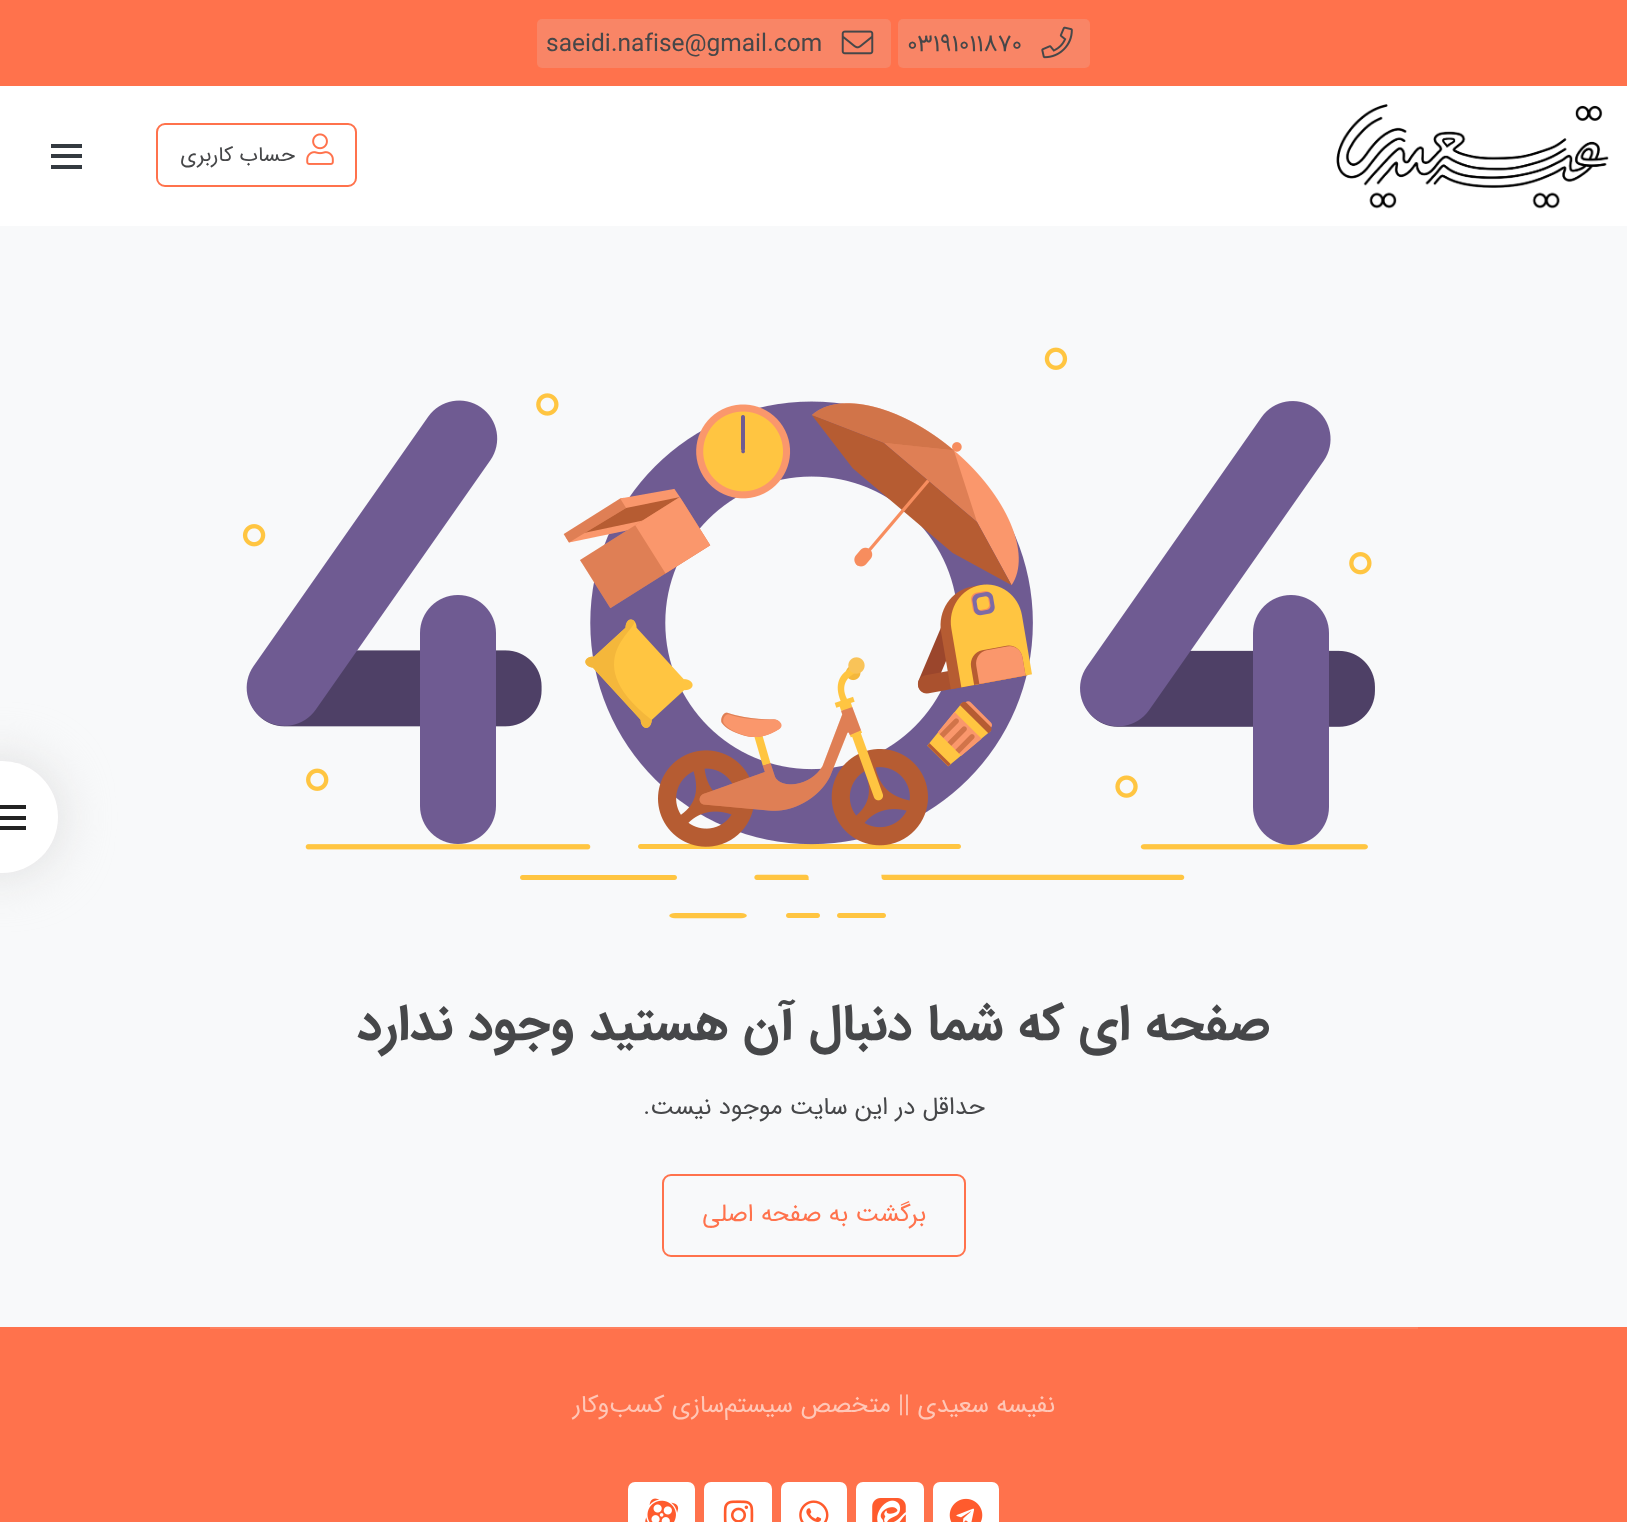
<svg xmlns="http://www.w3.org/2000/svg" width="1627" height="1522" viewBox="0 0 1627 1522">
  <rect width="100%" height="100%" fill="#f8f9fa"/>
  <path d="M0 0h1627v86H0z" fill="#ff724c"/>
  <rect x="898" y="19" width="192" height="49" rx="5" fill="#f98566"/>
  <image x="1041" y="26" width="32" height="33" href="img/1.png"/>
  <rect x="537" y="19" width="354" height="49" rx="5" fill="#f98566"/>
  <image x="841" y="30" width="33" height="25" href="img/2.png"/>
  <path d="M0 86h1627v140H0z" fill="#fff"/>
  <image x="1336" y="104" width="273" height="105" href="img/3.png"/>
  <rect x="157" y="124" width="199" height="62" rx="8" fill="none" stroke="#ff724c" stroke-width="2"/>
  <image x="306" y="133" width="28" height="32" href="img/4.png"/>
  <path d="M51 154h31v4H51z" fill="#343a40"/>
  <path d="M51 144h31v4H51z" fill="#343a40"/>
  <path d="M51 165h31v4H51z" fill="#343a40"/>
  <image x="242" y="347" width="1133" height="572" href="img/5.png"/>
  <rect x="663" y="1175" width="302" height="81" rx="8" fill="none" stroke="#ff724c" stroke-width="2"/>
  <path d="M0 1327h1627v195H0z" fill="#ff724c"/>
  <path d="M210 1327h1208v2H210z" fill="#ff805e"/>
  <rect x="933" y="1482" width="66" height="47" rx="7" fill="#fff"/>
  <image x="949" y="1498" width="34" height="24" href="img/6.png"/>
  <rect x="856" y="1482" width="68" height="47" rx="7" fill="#fff"/>
  <image x="872" y="1498" width="34" height="24" href="img/7.png"/>
  <rect x="781" y="1482" width="66" height="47" rx="7" fill="#fff"/>
  <image x="799" y="1500" width="30" height="22" href="img/8.png"/>
  <rect x="704" y="1482" width="68" height="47" rx="7" fill="#fff"/>
  <image x="723" y="1500" width="31" height="22" href="img/9.png"/>
  <rect x="628" y="1482" width="67" height="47" rx="7" fill="#fff"/>
  <image x="645" y="1498" width="34" height="24" href="img/10.png"/>
  <rect x="-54" y="761" width="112" height="112" rx="56" fill="#dcdcdc" filter="blur(26px)"/>
  <circle cx="2" cy="817" r="56" fill="#fff"/>
  <path d="M0 805h26v4H0z" fill="#222"/>
  <path d="M0 816h26v4H0z" fill="#222"/>
  <path d="M0 826h26v4H0z" fill="#222"/>
  <g font-family="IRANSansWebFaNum" font-size="24.5" fill="#464749">
    <text x="907" y="51">03191011870</text>
    <text x="546" y="51">saeidi.nafise@gmail.com</text>
  </g>
  <text x="295" y="161" font-family="IRANSansWebFaNum" font-size="21" direction="rtl" fill="#464749">حساب کاربری</text>
  <text x="1270" y="1039" font-family="IRANSansWebFaNum" font-size="50.4" font-weight="bold" direction="rtl" fill="#464749">صفحه ای که شما دنبال آن هستید وجود ندارد</text>
  <text x="985" y="1114" font-family="IRANSansWebFaNum" font-size="24.5" direction="rtl" fill="#464749">حداقل در این سایت موجود نیست.</text>
  <text x="926" y="1221" font-family="IRANSansWebFaNum" font-size="24.5" direction="rtl" fill="#ff724c">برگشت به صفحه اصلی</text>
  <text x="1055" y="1412" font-family="IRANSansWebFaNum" font-size="24.5" direction="rtl" fill="#ffc7b7">نفیسه سعیدی || متخصص سیستم‌سازی کسب‌و‌کار</text>
</svg>
